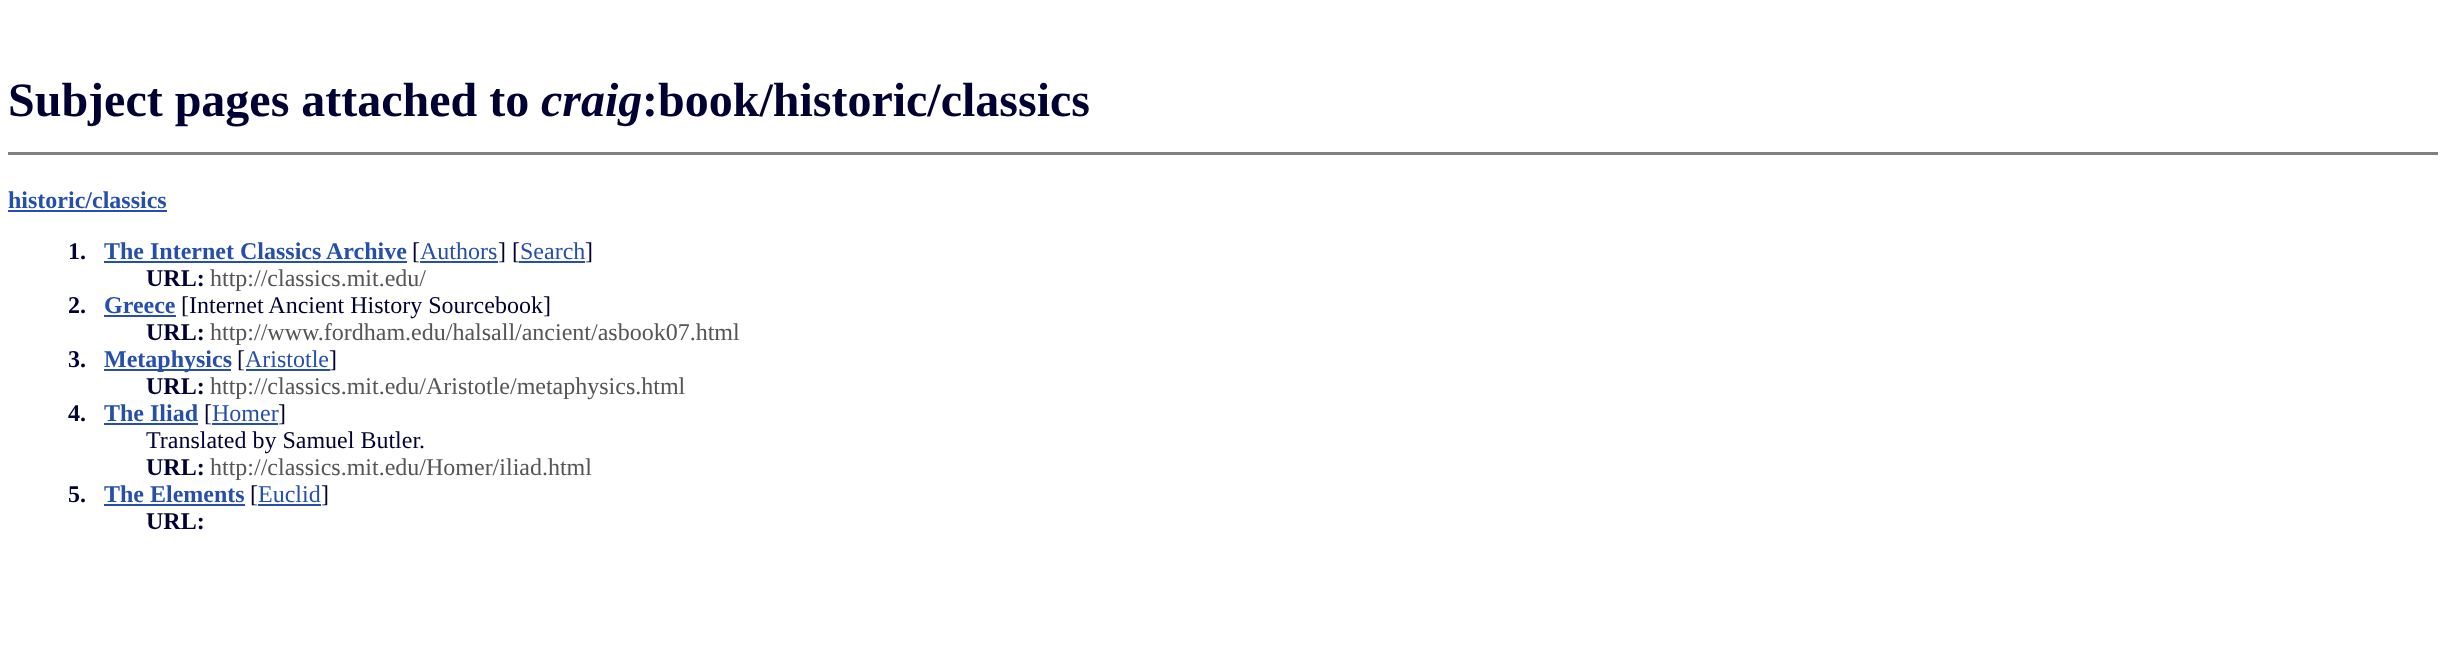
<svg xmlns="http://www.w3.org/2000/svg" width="2445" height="647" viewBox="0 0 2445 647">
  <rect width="100%" height="100%" fill="#fff"/>
  <path d="M8 152h2430v3H8z" fill="#808080"/>
  <path d="M8 210h159v2H8z" fill="#264fab"/>
  <path d="M104 261h303v2H104z" fill="#264fab"/>
  <path d="M420 261h78v2H420z" fill="#264fab"/>
  <path d="M519 261h66v2H519z" fill="#264fab"/>
  <path d="M104 315h72v2H104z" fill="#264fab"/>
  <path d="M104 369h127v2H104z" fill="#264fab"/>
  <path d="M246 369h84v2H246z" fill="#264fab"/>
  <path d="M104 423h94v2H104z" fill="#264fab"/>
  <path d="M212 423h66v2H212z" fill="#264fab"/>
  <path d="M104 504h141v2H104z" fill="#264fab"/>
  <path d="M258 504h63v2H258z" fill="#264fab"/>
  <text x="8" y="116" font-family="Liberation Serif" font-size="48" font-weight="bold" fill="#003">Subject pages attached to</text>
  <text x="541" y="116" font-family="Liberation Serif" font-size="48" font-weight="bold" font-style="italic" fill="#003">craig</text>
  <text x="642" y="116" font-family="Liberation Serif" font-size="48" font-weight="bold" fill="#003">:book/historic/classics</text>
  <text x="8" y="208" font-family="Liberation Serif" font-size="24" font-weight="bold" fill="#264fab">historic/classics</text>
  <text x="68" y="259" font-family="Liberation Serif" font-size="24" font-weight="bold" fill="#003">1.</text>
  <text x="104" y="259" font-family="Liberation Serif" font-size="24" font-weight="bold" fill="#264fab">The Internet Classics Archive</text>
  <text x="412" y="259" font-family="Liberation Serif" font-size="24" fill="#003">[</text>
  <text x="420" y="259" font-family="Liberation Serif" font-size="24" fill="#264fab">Authors</text>
  <text x="498" y="259" font-family="Liberation Serif" font-size="24" fill="#003">] [</text>
  <text x="520" y="259" font-family="Liberation Serif" font-size="24" fill="#264fab">Search</text>
  <text x="585" y="259" font-family="Liberation Serif" font-size="24" fill="#003">]</text>
  <text x="146" y="286" font-family="Liberation Serif" font-size="24" font-weight="bold" fill="#003">URL:</text>
  <text x="210" y="286" font-family="Liberation Serif" font-size="24" fill="#555">http://classics.mit.edu/</text>
  <text x="68" y="313" font-family="Liberation Serif" font-size="24" font-weight="bold" fill="#003">2.</text>
  <text x="104" y="313" font-family="Liberation Serif" font-size="24" font-weight="bold" fill="#264fab">Greece</text>
  <text x="181" y="313" font-family="Liberation Serif" font-size="24" fill="#003">[Internet Ancient History Sourcebook]</text>
  <text x="146" y="340" font-family="Liberation Serif" font-size="24" font-weight="bold" fill="#003">URL:</text>
  <text x="210" y="340" font-family="Liberation Serif" font-size="24" fill="#555">http://www.fordham.edu/halsall/ancient/asbook07.html</text>
  <text x="68" y="367" font-family="Liberation Serif" font-size="24" font-weight="bold" fill="#003">3.</text>
  <text x="104" y="367" font-family="Liberation Serif" font-size="24" font-weight="bold" fill="#264fab">Metaphysics</text>
  <text x="237" y="367" font-family="Liberation Serif" font-size="24" fill="#003">[</text>
  <text x="245" y="367" font-family="Liberation Serif" font-size="24" fill="#264fab">Aristotle</text>
  <text x="329" y="367" font-family="Liberation Serif" font-size="24" fill="#003">]</text>
  <text x="146" y="394" font-family="Liberation Serif" font-size="24" font-weight="bold" fill="#003">URL:</text>
  <text x="210" y="394" font-family="Liberation Serif" font-size="24" fill="#555">http://classics.mit.edu/Aristotle/metaphysics.html</text>
  <text x="68" y="421" font-family="Liberation Serif" font-size="24" font-weight="bold" fill="#003">4.</text>
  <text x="104" y="421" font-family="Liberation Serif" font-size="24" font-weight="bold" fill="#264fab">The Iliad</text>
  <text x="204" y="421" font-family="Liberation Serif" font-size="24" fill="#003">[</text>
  <text x="212" y="421" font-family="Liberation Serif" font-size="24" fill="#264fab">Homer</text>
  <g font-family="Liberation Serif" font-size="24" fill="#003">
    <text x="278" y="421">]</text>
    <text x="146" y="448">Translated by Samuel Butler.</text>
  </g>
  <text x="146" y="475" font-family="Liberation Serif" font-size="24" font-weight="bold" fill="#003">URL:</text>
  <text x="210" y="475" font-family="Liberation Serif" font-size="24" fill="#555">http://classics.mit.edu/Homer/iliad.html</text>
  <text x="68" y="502" font-family="Liberation Serif" font-size="24" font-weight="bold" fill="#003">5.</text>
  <text x="104" y="502" font-family="Liberation Serif" font-size="24" font-weight="bold" fill="#264fab">The Elements</text>
  <text x="250" y="502" font-family="Liberation Serif" font-size="24" fill="#003">[</text>
  <text x="258" y="502" font-family="Liberation Serif" font-size="24" fill="#264fab">Euclid</text>
  <text x="321" y="502" font-family="Liberation Serif" font-size="24" fill="#003">]</text>
  <text x="146" y="529" font-family="Liberation Serif" font-size="24" font-weight="bold" fill="#003">URL:</text>
</svg>
